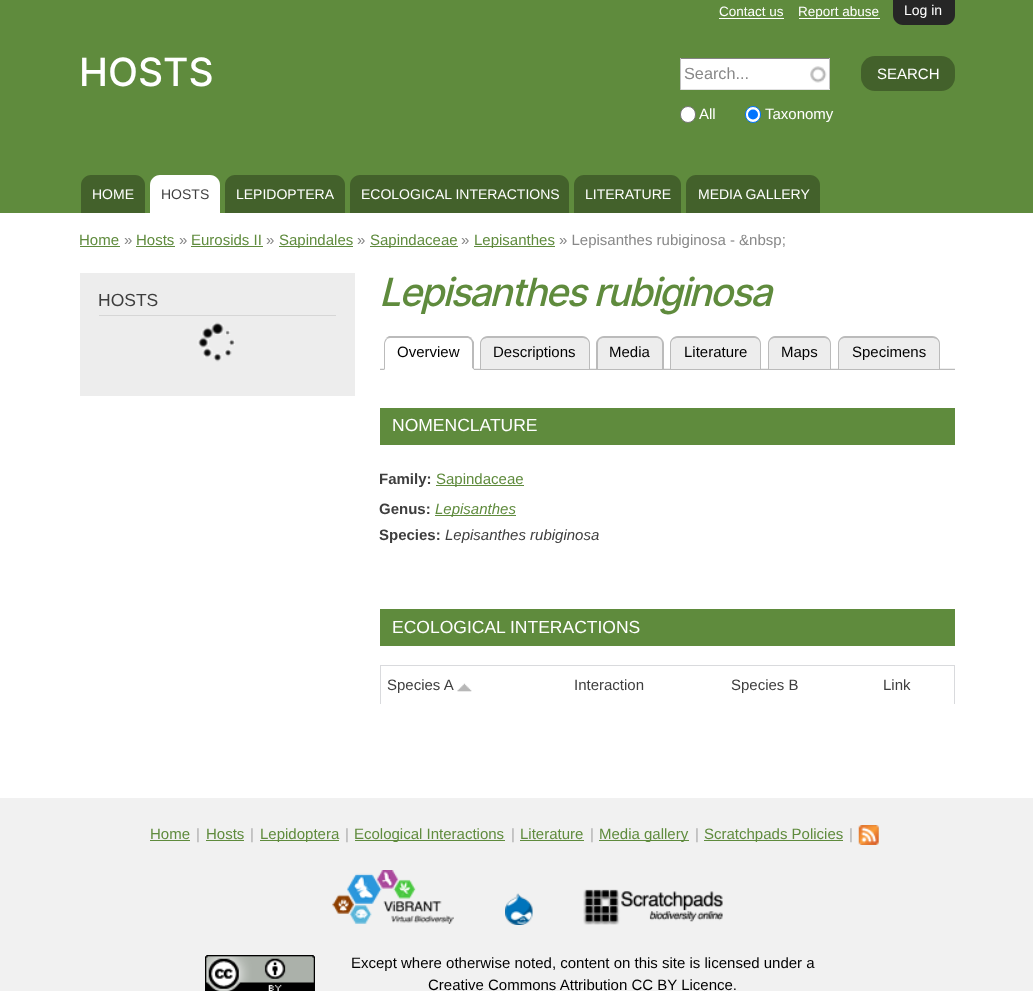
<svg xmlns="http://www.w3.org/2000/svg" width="1033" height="991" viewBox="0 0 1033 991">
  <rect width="100%" height="100%" fill="#fff"/>
  <path d="M0 0h1033v213H0z" fill="#5f8b3d"/>
  <path d="M893 0H955V15C955 20.5 950.5 25 945 25H903C897.5 25 893 20.5 893 15Z" fill="#262626"/>
  <path d="M719 18h65v1H719z" fill="#fff"/>
  <path d="M799 18h81v1H799z" fill="#fff"/>
  <path d="M681 59h148v30H681z" fill="#fff"/>
  <image x="810" y="66" width="17" height="17" href="img/1.png"/>
  <path d="M680 58h150v1H680z" fill="#848484"/>
  <path d="M829 58h1v32H829z" fill="#c1c1c1"/>
  <path d="M680 89h150v1H680z" fill="#e1e1e1"/>
  <path d="M680 58h1v32H680z" fill="#c1c1c1"/>
  <rect x="861" y="56" width="94" height="35" rx="14" fill="#43612b"/>
  <rect x="680.5" y="106.5" width="15" height="16" rx="7.5" fill="#fff" stroke="#767676"/>
  <rect x="745.5" y="106.5" width="15" height="16" rx="7.5" fill="#fff" stroke="#0075ff"/>
  <circle cx="753" cy="114.5" r="5" fill="#0075ff"/>
  <path d="M91 175H135C140.5 175 145 179.5 145 185V213H81V185C81 179.5 85.5 175 91 175Z" fill="#43612b"/>
  <path d="M160 175H210C215.5 175 220 179.5 220 185V213H150V185C150 179.5 154.5 175 160 175Z" fill="#fff"/>
  <path d="M235 175H335C340.5 175 345 179.5 345 185V213H225V185C225 179.5 229.5 175 235 175Z" fill="#43612b"/>
  <path d="M360 175H559C564.5 175 569 179.5 569 185V213H350V185C350 179.5 354.5 175 360 175Z" fill="#43612b"/>
  <path d="M584 175H671C676.5 175 681 179.5 681 185V213H574V185C574 179.5 578.5 175 584 175Z" fill="#43612b"/>
  <path d="M696 175H810C815.5 175 820 179.5 820 185V213H686V185C686 179.5 690.5 175 696 175Z" fill="#43612b"/>
  <path d="M80 246h40v1H80z" fill="#5f8b3d"/>
  <path d="M136 246h39v1H136z" fill="#5f8b3d"/>
  <path d="M191 246h72v1H191z" fill="#5f8b3d"/>
  <path d="M279 246h74v1H279z" fill="#5f8b3d"/>
  <path d="M370 246h88v1H370z" fill="#5f8b3d"/>
  <path d="M474 246h81v1H474z" fill="#5f8b3d"/>
  <path d="M80 273h275v123H80z" fill="#ededed"/>
  <path d="M99 315h237v1H99z" fill="#d6d6d6"/>
  <image x="197" y="322" width="38" height="40" href="img/2.png"/>
  <image x="380" y="368" width="575" height="2" href="img/3.png"/>
  <path d="M392 336H466C470.5 336 474 339.5 474 344V370H384V344C384 339.5 387.5 336 392 336Z" fill="#fff"/>
  <path d="M391 338C390 338 388 338 387 339L386 338L389 336H468L472 338L470 340C470 338 468 338 466 338Z" fill="#bbb"/>
  <path d="M474 342V370L472 368V344C472 342 471.5 340.5 470.5 339.5L471.5 338.5C472.5 339.5 473.5 341 474 342Z" fill="#bbb"/>
  <path d="M474 370L472 368V369H385L384 370Z" fill="#fff"/>
  <path d="M384 370V344C384 342 385 340 386 338.5L387 339.5C386 340.5 385 342 385 344V369Z" fill="#bbb"/>
  <path d="M488 336H582C586.5 336 590 339.5 590 344V369H480V344C480 339.5 483.5 336 488 336Z" fill="#ededed"/>
  <path d="M488 336H582C587 336 590 340 590 344V369H480V344C480 340 483 336 488 336ZM488 338H582C586 338 589 340 589 344V369H481V344C481 340 484 338 488 338Z" fill="#bbb" fill-rule="evenodd"/>
  <path d="M604 336H656C660.5 336 664 339.5 664 344V369H596V344C596 339.5 599.5 336 604 336Z" fill="#ededed"/>
  <path d="M604 336H656C660 336 664 340 664 344V369H596V344C596 340 600 336 604 336ZM604 338H656C660 338 662 340 662 344V369H598V344C598 340 600 338 604 338Z" fill="#bbb" fill-rule="evenodd"/>
  <path d="M678 336H753C757.5 336 761 339.5 761 344V369H670V344C670 339.5 673.5 336 678 336Z" fill="#ededed"/>
  <path d="M678 336H754C758 336 761 340 761 344V369H670V344C670 340 673 336 678 336ZM678 338H754C757 338 760 340 760 344V369H671V344C671 340 674 338 678 338Z" fill="#bbb" fill-rule="evenodd"/>
  <path d="M776 336H823C827.5 336 831 339.5 831 344V369H768V344C768 339.5 771.5 336 776 336Z" fill="#ededed"/>
  <path d="M775 336H824C828 336 831 340 831 344V369H768V344C768 340 771 336 775 336ZM775 338H824C827 338 830 340 830 344V369H769V344C769 340 772 338 775 338Z" fill="#bbb" fill-rule="evenodd"/>
  <path d="M846 336H932C936.5 336 940 339.5 940 344V369H838V344C838 339.5 841.5 336 846 336Z" fill="#ededed"/>
  <path d="M845 336H932C937 336 940 340 940 344V369H838V344C838 340 841 336 845 336ZM845 338H932C936 338 939 340 939 344V369H839V344C839 340 842 338 845 338Z" fill="#bbb" fill-rule="evenodd"/>
  <path d="M380 408h575v37H380z" fill="#5f8b3d"/>
  <path d="M436 485h88v1H436z" fill="#5f8b3d"/>
  <path d="M435 515h81v1H435z" fill="#5f8b3d"/>
  <path d="M380 609h575v37H380z" fill="#5f8b3d"/>
  <path d="M380 665h575v1H380z" fill="#d9dadd"/>
  <path d="M954 665h1v39H954z" fill="#d9dadd"/>
  <path d="M380 665h1v39H380z" fill="#d9dadd"/>
  <image x="457" y="683" width="15" height="9" href="img/4.png"/>
  <path d="M0 798h1033v193H0z" fill="#f1f1f1"/>
  <path d="M150 840h40v1H150z" fill="#5f8b3d"/>
  <path d="M206 840h38v1H206z" fill="#5f8b3d"/>
  <path d="M260 840h79v1H260z" fill="#5f8b3d"/>
  <path d="M355 840h150v1H355z" fill="#5f8b3d"/>
  <path d="M520 840h64v1H520z" fill="#5f8b3d"/>
  <path d="M599 840h90v1H599z" fill="#5f8b3d"/>
  <path d="M704 840h139v1H704z" fill="#5f8b3d"/>
  <image x="858" y="825" width="21" height="20" href="img/5.png"/>
  <image x="332" y="870" width="122" height="54" href="img/6.png"/>
  <image x="505" y="893" width="28" height="32" href="img/7.png"/>
  <image x="583" y="889" width="140" height="36" href="img/8.png"/>
  <image x="205" y="955" width="110" height="36" href="img/9.png"/>
  <text x="904" y="15" font-family="Liberation Sans" font-size="14" fill="#fff">Log in</text>
  <g font-family="Liberation Sans" font-size="13.5" fill="#fff">
    <text x="719" y="16">Contact us</text>
    <text x="798" y="16">Report abuse</text>
  </g>
  <text x="79" y="86" font-family="Inter" font-size="39" font-weight="500" fill="#fff">HOSTS</text>
  <text x="684" y="79" font-family="Liberation Sans" font-size="16.25" fill="#888">Search...</text>
  <g font-family="Liberation Sans" font-size="15" fill="#fff">
    <text x="877" y="79">SEARCH</text>
    <text x="699" y="119">All</text>
    <text x="765" y="119">Taxonomy</text>
  </g>
  <text x="92" y="199" font-family="Liberation Sans" font-size="14" fill="#fff">HOME</text>
  <text x="161" y="199" font-family="Liberation Sans" font-size="14" fill="#3e3e3e">HOSTS</text>
  <g font-family="Liberation Sans" font-size="14" fill="#fff">
    <text x="236" y="199">LEPIDOPTERA</text>
    <text x="361" y="199">ECOLOGICAL INTERACTIONS</text>
    <text x="585" y="199">LITERATURE</text>
    <text x="698" y="199">MEDIA GALLERY</text>
  </g>
  <text x="79" y="245" font-family="Liberation Sans" font-size="15" fill="#5f8b3d">Home</text>
  <text x="124" y="245" font-family="Liberation Sans" font-size="15" fill="#888">»</text>
  <text x="136" y="245" font-family="Liberation Sans" font-size="15" fill="#5f8b3d">Hosts</text>
  <text x="179" y="245" font-family="Liberation Sans" font-size="15" fill="#888">»</text>
  <text x="191" y="245" font-family="Liberation Sans" font-size="15" fill="#5f8b3d">Eurosids II</text>
  <text x="266" y="245" font-family="Liberation Sans" font-size="15" fill="#888">»</text>
  <text x="279" y="245" font-family="Liberation Sans" font-size="15" fill="#5f8b3d">Sapindales</text>
  <text x="357" y="245" font-family="Liberation Sans" font-size="15" fill="#888">»</text>
  <text x="370" y="245" font-family="Liberation Sans" font-size="15" fill="#5f8b3d">Sapindaceae</text>
  <text x="461" y="245" font-family="Liberation Sans" font-size="15" fill="#888">»</text>
  <text x="474" y="245" font-family="Liberation Sans" font-size="15" fill="#5f8b3d">Lepisanthes</text>
  <text x="559" y="245" font-family="Liberation Sans" font-size="15" fill="#888">» Lepisanthes rubiginosa - &amp;nbsp;</text>
  <text x="98" y="306" font-family="Liberation Sans" font-size="17.5" fill="#3e3e3e">HOSTS</text>
  <text x="379" y="306" font-family="Inter" font-size="39" font-weight="500" font-style="italic" letter-spacing="-1.95" fill="#5f8b3d">Lepisanthes rubiginosa</text>
  <g font-family="Liberation Sans" font-size="15" fill="#000">
    <text x="397" y="357">Overview</text>
    <text x="493" y="357">Descriptions</text>
    <text x="609" y="357">Media</text>
    <text x="684" y="357">Literature</text>
    <text x="781" y="357">Maps</text>
    <text x="852" y="357">Specimens</text>
  </g>
  <text x="392" y="431" font-family="Liberation Sans" font-size="17.5" fill="#fff">NOMENCLATURE</text>
  <text x="379" y="484" font-family="Liberation Sans" font-size="15" font-weight="bold" fill="#3e3e3e">Family:</text>
  <text x="436" y="484" font-family="Liberation Sans" font-size="15" fill="#5f8b3d">Sapindaceae</text>
  <text x="379" y="514" font-family="Liberation Sans" font-size="15" font-weight="bold" fill="#3e3e3e">Genus:</text>
  <text x="435" y="514" font-family="Liberation Sans" font-size="15" font-style="italic" fill="#5f8b3d">Lepisanthes</text>
  <text x="379" y="540" font-family="Liberation Sans" font-size="15" font-weight="bold" fill="#3e3e3e">Species:</text>
  <text x="445" y="540" font-family="Liberation Sans" font-size="15" font-style="italic" fill="#3e3e3e">Lepisanthes rubiginosa</text>
  <text x="392" y="633" font-family="Liberation Sans" font-size="17.5" fill="#fff">ECOLOGICAL INTERACTIONS</text>
  <g font-family="Liberation Sans" font-size="15" fill="#3e3e3e">
    <text x="387" y="690">Species A</text>
    <text x="574" y="690">Interaction</text>
    <text x="731" y="690">Species B</text>
    <text x="883" y="690">Link</text>
  </g>
  <text x="150" y="839" font-family="Liberation Sans" font-size="15" fill="#5f8b3d">Home</text>
  <text x="196" y="839" font-family="Liberation Sans" font-size="15" fill="#acacac">|</text>
  <text x="206" y="839" font-family="Liberation Sans" font-size="15" fill="#5f8b3d">Hosts</text>
  <text x="250" y="839" font-family="Liberation Sans" font-size="15" fill="#acacac">|</text>
  <text x="260" y="839" font-family="Liberation Sans" font-size="15" fill="#5f8b3d">Lepidoptera</text>
  <text x="345" y="839" font-family="Liberation Sans" font-size="15" fill="#acacac">|</text>
  <text x="354" y="839" font-family="Liberation Sans" font-size="15" fill="#5f8b3d">Ecological Interactions</text>
  <text x="511" y="839" font-family="Liberation Sans" font-size="15" fill="#acacac">|</text>
  <text x="520" y="839" font-family="Liberation Sans" font-size="15" fill="#5f8b3d">Literature</text>
  <text x="590" y="839" font-family="Liberation Sans" font-size="15" fill="#acacac">|</text>
  <text x="599" y="839" font-family="Liberation Sans" font-size="15" fill="#5f8b3d">Media gallery</text>
  <text x="695" y="839" font-family="Liberation Sans" font-size="15" fill="#acacac">|</text>
  <text x="704" y="839" font-family="Liberation Sans" font-size="15" fill="#5f8b3d">Scratchpads Policies</text>
  <text x="849" y="839" font-family="Liberation Sans" font-size="15" fill="#acacac">|</text>
  <g font-family="Liberation Sans" font-size="15" fill="#000">
    <text x="351" y="968">Except where otherwise noted, content on this site is licensed under a</text>
    <text x="428" y="990">Creative Commons Attribution CC BY Licence.</text>
  </g>
</svg>
